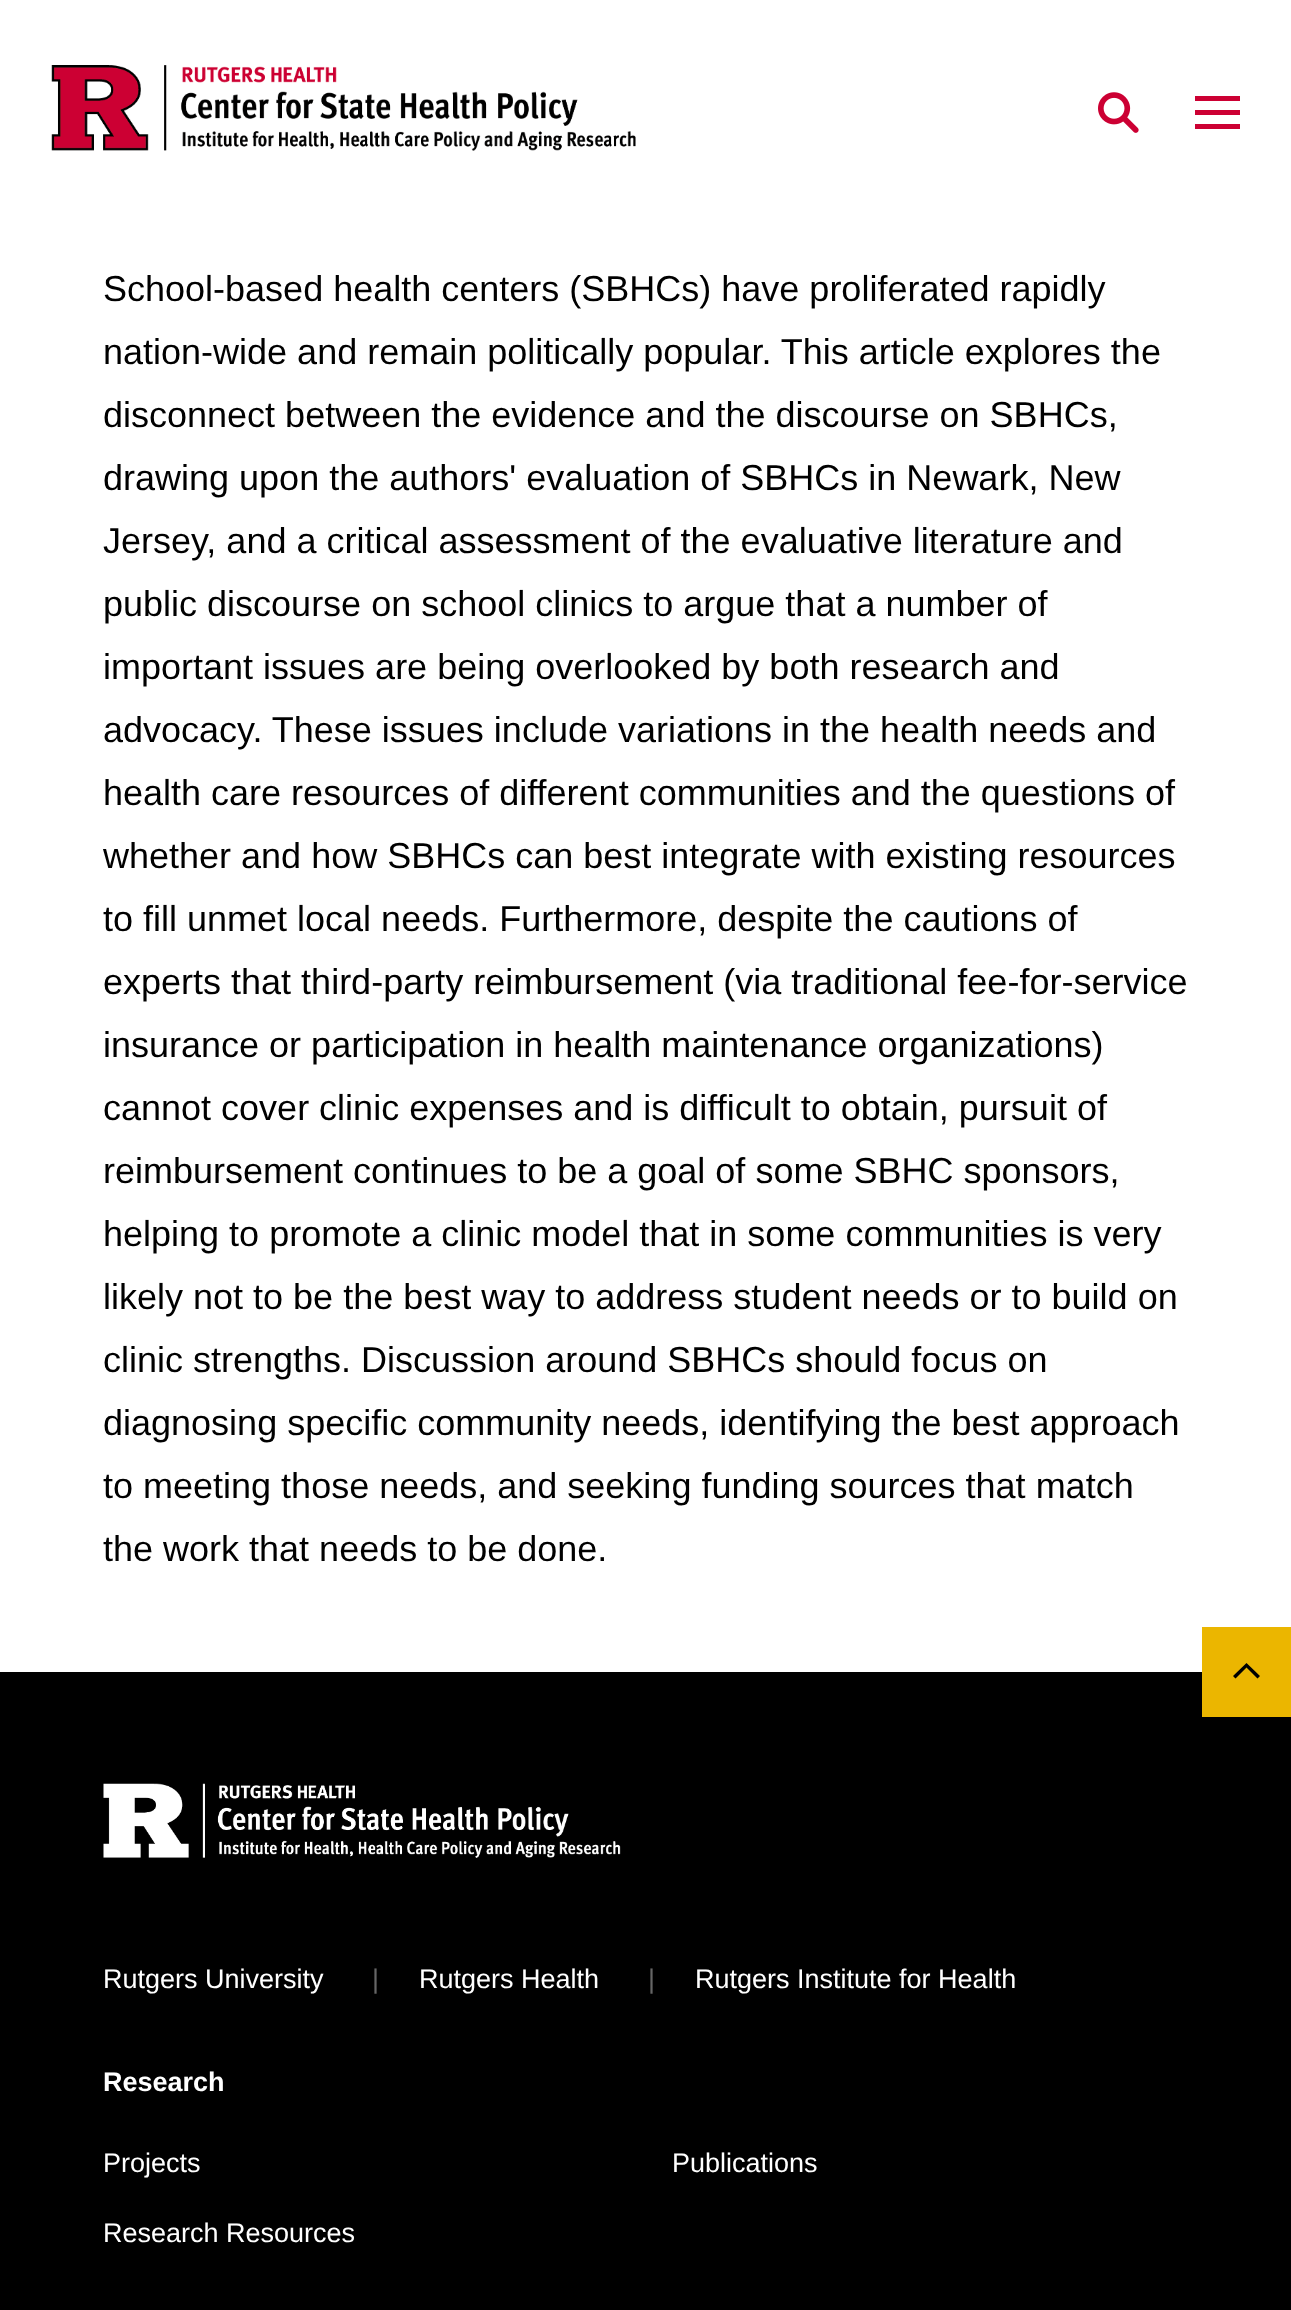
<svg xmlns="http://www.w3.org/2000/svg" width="1291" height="2310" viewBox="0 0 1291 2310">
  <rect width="100%" height="100%" fill="#fff"/>
  <image x="51" y="65" width="585" height="86" href="img/1.png"/>
  <image x="1098" y="92" width="41" height="41" href="img/2.png"/>
  <path d="M1240 124V129H1195V124ZM1240 110V115H1195V110ZM1240 96V101H1195V96Z" fill="#c03"/>
  <path d="M0 1672h1291v638H0z" fill="#000"/>
  <path d="M1202 1627h89v90H1202z" fill="#ebb600"/>
  <path d="M1235.5 1678.5L1233 1676L1246.5 1663L1260 1676L1257.5 1678.5L1246.5 1667.5Z" fill="#000"/>
  <image x="103" y="1783" width="518" height="75" href="img/3.png"/>
  <g font-family="Liberation Sans" font-size="36" fill="#000">
    <text x="103" y="301">School-based health centers (SBHCs) have proliferated rapidly</text>
    <text x="103" y="364">nation-wide and remain politically popular. This article explores the</text>
    <text x="103" y="427">disconnect between the evidence and the discourse on SBHCs,</text>
    <text x="103" y="490">drawing upon the authors' evaluation of SBHCs in Newark, New</text>
    <text x="103" y="553">Jersey, and a critical assessment of the evaluative literature and</text>
    <text x="103" y="616">public discourse on school clinics to argue that a number of</text>
    <text x="103" y="679">important issues are being overlooked by both research and</text>
    <text x="103" y="742">advocacy. These issues include variations in the health needs and</text>
    <text x="103" y="805">health care resources of different communities and the questions of</text>
    <text x="103" y="868">whether and how SBHCs can best integrate with existing resources</text>
    <text x="103" y="931">to fill unmet local needs. Furthermore, despite the cautions of</text>
    <text x="103" y="994">experts that third-party reimbursement (via traditional fee-for-service</text>
    <text x="103" y="1057">insurance or participation in health maintenance organizations)</text>
    <text x="103" y="1120">cannot cover clinic expenses and is difficult to obtain, pursuit of</text>
    <text x="103" y="1183">reimbursement continues to be a goal of some SBHC sponsors,</text>
    <text x="103" y="1246">helping to promote a clinic model that in some communities is very</text>
    <text x="103" y="1309">likely not to be the best way to address student needs or to build on</text>
    <text x="103" y="1372">clinic strengths. Discussion around SBHCs should focus on</text>
    <text x="103" y="1435">diagnosing specific community needs, identifying the best approach</text>
    <text x="103" y="1498">to meeting those needs, and seeking funding sources that match</text>
    <text x="103" y="1561">the work that needs to be done.</text>
  </g>
  <text x="103" y="1988" font-family="Liberation Sans" font-size="27" fill="#fff">Rutgers University</text>
  <text x="372" y="1988" font-family="Liberation Sans" font-size="27" fill="#666">|</text>
  <text x="419" y="1988" font-family="Liberation Sans" font-size="27" fill="#fff">Rutgers Health</text>
  <text x="648" y="1988" font-family="Liberation Sans" font-size="27" fill="#666">|</text>
  <text x="695" y="1988" font-family="Liberation Sans" font-size="27" fill="#fff">Rutgers Institute for Health</text>
  <text x="103" y="2091" font-family="Liberation Sans" font-size="27" font-weight="bold" fill="#fff">Research</text>
  <g font-family="Liberation Sans" font-size="27" fill="#fff">
    <text x="103" y="2172">Projects</text>
    <text x="672" y="2172">Publications</text>
    <text x="103" y="2242">Research Resources</text>
  </g>
</svg>
